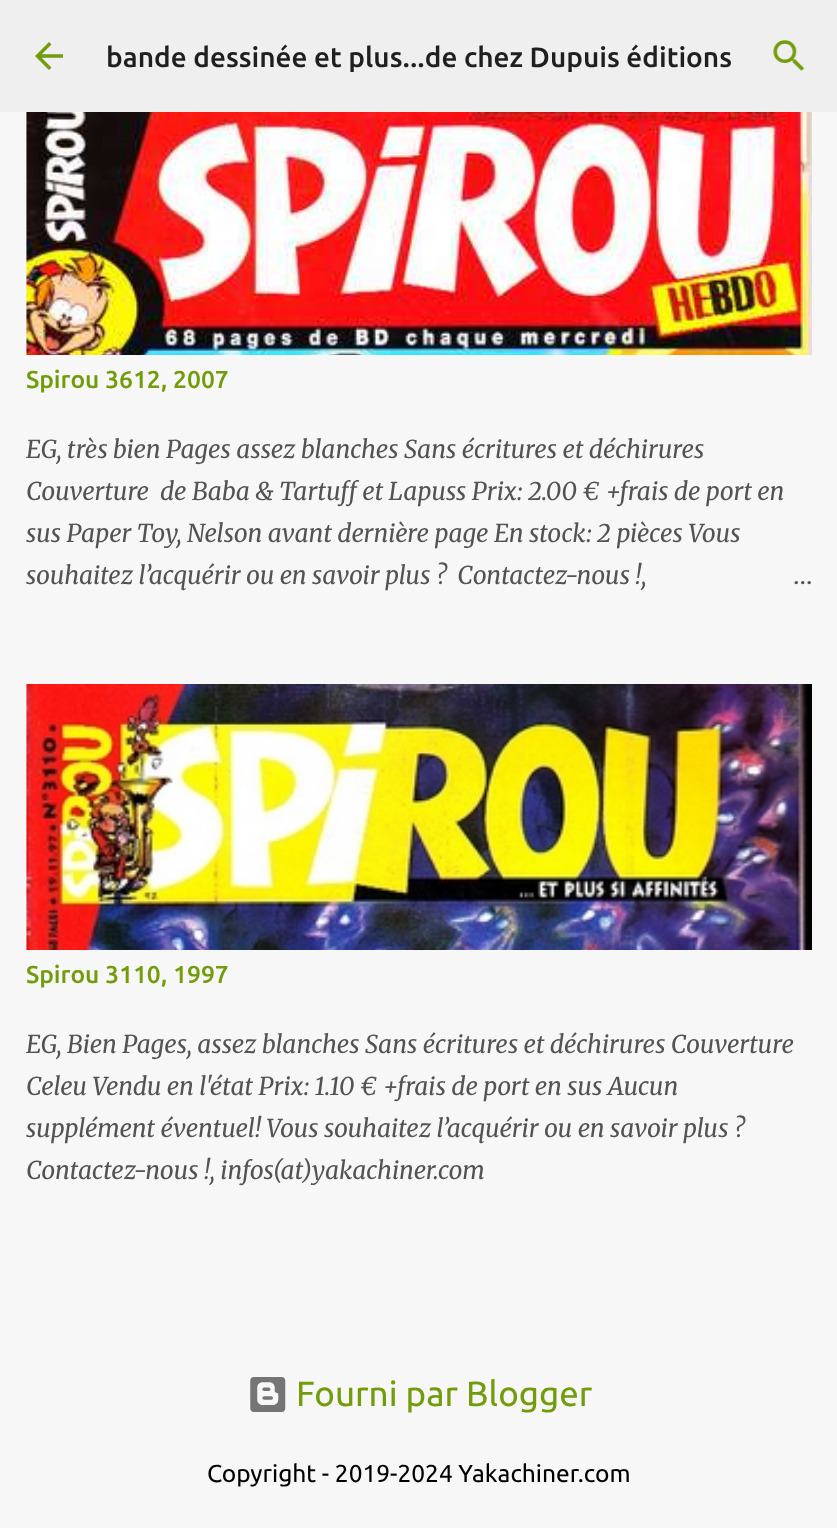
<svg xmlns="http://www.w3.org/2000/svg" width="837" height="1528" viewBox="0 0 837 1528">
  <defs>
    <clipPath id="clip1"><path d="M98 40h642v32H98z"/></clipPath>
  </defs>
  <rect width="100%" height="100%" fill="#f7f7f7"/>
  <path d="M0 0h837v112H0z" fill="#efefef"/>
  <image x="35" y="42" width="28" height="28" href="img/1.png"/>
  <image x="773" y="40" width="32" height="31" href="img/2.png"/>
  <image x="26" y="112" width="786" height="243" href="img/3.png"/>
  <image x="26" y="684" width="786" height="266" href="img/4.png"/>
  <image x="250" y="1377" width="36" height="35" href="img/5.png"/>
  <g clip-path="url(#clip1)">
    <text x="106" y="67" font-family="Ubuntu" font-size="28" font-weight="500" fill="#1f1f1f">bande dessinée et plus...de chez Dupuis éditions</text>
  </g>
  <text x="26" y="388" font-family="Ubuntu" font-size="24.5" font-weight="500" fill="#729c0b">Spirou 3612, 2007</text>
  <g font-family="Merriweather" font-size="24.5" font-style="italic" fill="#535353">
    <text x="26" y="458">EG, très bien Pages assez blanches Sans écritures et déchirures</text>
    <text x="26" y="500" xml:space="preserve">Couverture  de Baba &amp; Tartuff et Lapuss Prix: 2.00 € +frais de port en</text>
    <text x="26" y="542">sus Paper Toy, Nelson avant dernière page En stock: 2 pièces Vous</text>
    <text x="26" y="584" xml:space="preserve">souhaitez l’acquérir ou en savoir plus ?  Contactez-nous !,</text>
  </g>
  <text x="793" y="584" font-family="Merriweather" font-size="24.5" font-weight="300" fill="#535353">…</text>
  <text x="26" y="983" font-family="Ubuntu" font-size="24.5" font-weight="500" fill="#729c0b">Spirou 3110, 1997</text>
  <g font-family="Merriweather" font-size="24.5" font-style="italic" fill="#535353">
    <text x="26" y="1053">EG, Bien Pages, assez blanches Sans écritures et déchirures Couverture</text>
    <text x="26" y="1095">Celeu Vendu en l'état Prix: 1.10 € +frais de port en sus Aucun</text>
    <text x="26" y="1137">supplément éventuel! Vous souhaitez l’acquérir ou en savoir plus ?</text>
    <text x="26" y="1179">Contactez-nous !, infos(at)yakachiner.com</text>
  </g>
  <text x="296" y="1406" font-family="Ubuntu" font-size="35" fill="#729c0b">Fourni par Blogger</text>
  <text x="207" y="1482" font-family="Ubuntu" font-size="24.5" fill="#000">Copyright - 2019-2024 Yakachiner.com</text>
</svg>
